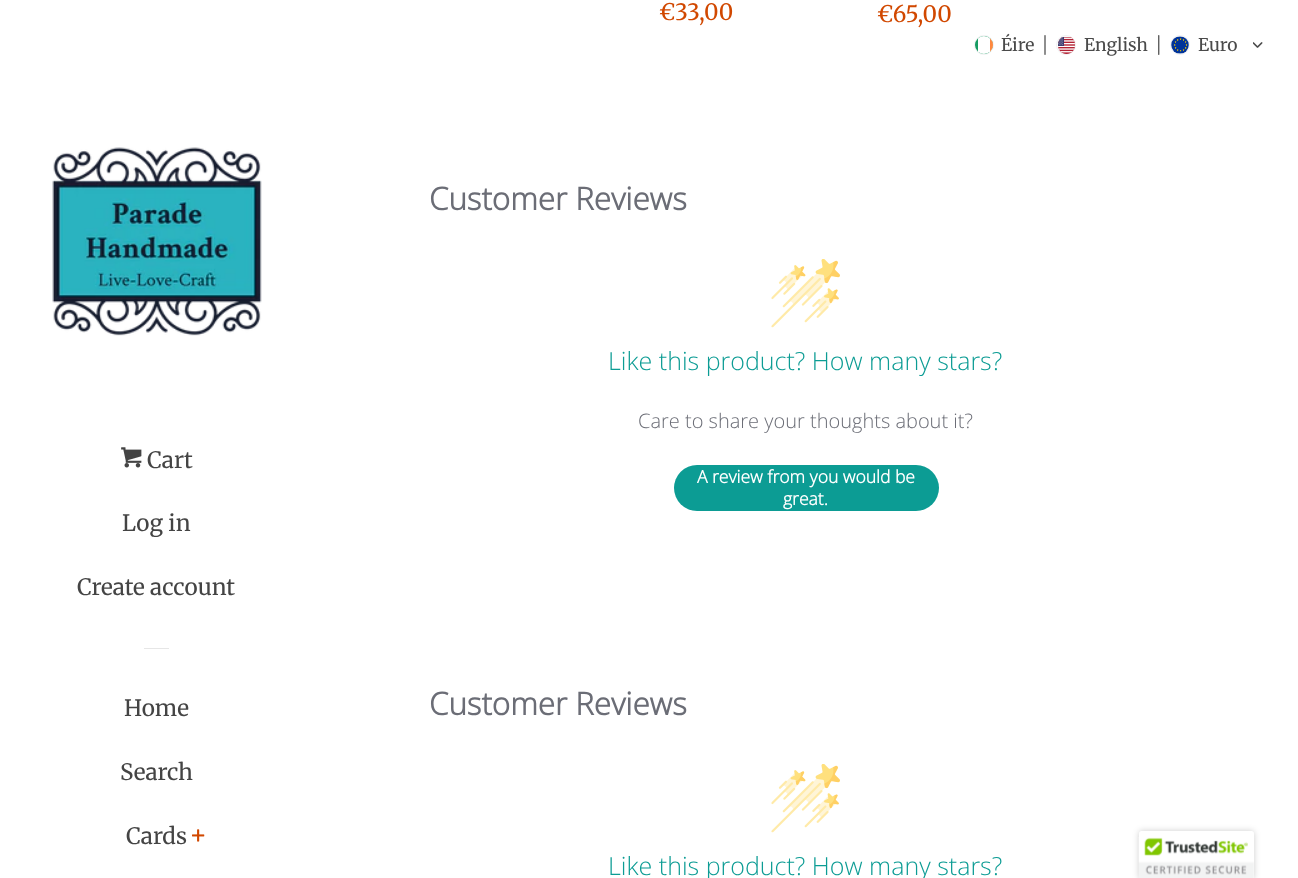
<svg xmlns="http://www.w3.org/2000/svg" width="1298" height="878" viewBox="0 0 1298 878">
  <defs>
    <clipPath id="clip1"><rect x="975" y="36" width="18" height="18" rx="9"/></clipPath>
  </defs>
  <rect width="100%" height="100%" fill="#fff"/>
  <image x="771" y="259" width="69" height="69" href="img/1.png"/>
  <rect x="674" y="465" width="265" height="46" rx="23" fill="#0c9c94"/>
  <image x="771" y="764" width="69" height="69" href="img/1.png"/>
  <circle cx="984" cy="45" r="9.5" fill="none" stroke="#f0f1f2"/>
  <circle cx="984" cy="45" r="9" fill="#169b62"/>
  <g clip-path="url(#clip1)">
    <path d="M978 36H984C989 36 993 40 993 45C993 50 989 54 984 54H978Z" fill="#fff"/>
    <path d="M990 36h3v18H990z" fill="#ff883e"/>
  </g>
  <image x="1044" y="35" width="2" height="20" href="img/2.png"/>
  <circle cx="1066" cy="45" r="9.5" fill="none" stroke="#f0f1f2"/>
  <image x="1058" y="37" width="17" height="17" href="img/3.png"/>
  <image x="1158" y="35" width="2" height="20" href="img/4.png"/>
  <circle cx="1180" cy="45" r="9.5" fill="none" stroke="#f0f1f2"/>
  <image x="1171" y="36" width="18" height="18" href="img/5.png"/>
  <image x="1253" y="42" width="10" height="6" href="img/6.png"/>
  <image x="52" y="147" width="210" height="189" href="img/7.png"/>
  <image x="121" y="447" width="21" height="21" href="img/8.png"/>
  <path d="M144 648h25v1H144z" fill="#e6e6e6"/>
  <image x="192" y="829" width="13" height="13" href="img/9.png"/>
  <rect x="1139" y="831" width="115" height="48" rx="2.5" fill="#00000033" filter="blur(3px)"/>
  <path d="M1141.5 831H1251.5C1253 831 1254 832 1254 833.5V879H1139V833.5C1139 832 1140 831 1141.5 831Z" fill="#fff"/>
  <image x="1138" y="837" width="116" height="41" href="img/10.png"/>
  <g font-family="Merriweather" font-size="22.5" fill="#d14800">
    <text x="659" y="20">€33,00</text>
    <text x="877" y="22">€65,00</text>
  </g>
  <text x="429" y="210" font-family="Open Sans" font-size="31.25" font-weight="bold" fill="#6b6d76">Customer Reviews</text>
  <text x="608" y="370" font-family="Open Sans" font-size="25" font-weight="300" fill="#0c9c94">Like this product? How many stars?</text>
  <text x="638" y="428" font-family="Open Sans" font-size="20" font-weight="300" fill="#6b6d76">Care to share your thoughts about it?</text>
  <g font-family="Open Sans" font-size="17.5" font-weight="bold" fill="#fff">
    <text x="697" y="483">A review from you would be</text>
    <text x="783" y="505">great.</text>
  </g>
  <text x="429" y="715" font-family="Open Sans" font-size="31.25" font-weight="bold" fill="#6b6d76">Customer Reviews</text>
  <text x="608" y="875" font-family="Open Sans" font-size="25" font-weight="300" fill="#0c9c94">Like this product? How many stars?</text>
  <g font-family="Merriweather" font-size="17.5" fill="#4a4a4a">
    <text x="1001" y="51">Éire</text>
    <text x="1084" y="51">English</text>
    <text x="1198" y="51">Euro</text>
  </g>
  <g font-family="Merriweather" font-size="22.5" fill="#444">
    <text x="147" y="468">Cart</text>
    <text x="122" y="531">Log in</text>
    <text x="77" y="595">Create account</text>
    <text x="124" y="716">Home</text>
    <text x="120" y="780">Search</text>
    <text x="126" y="844">Cards</text>
  </g>
</svg>
